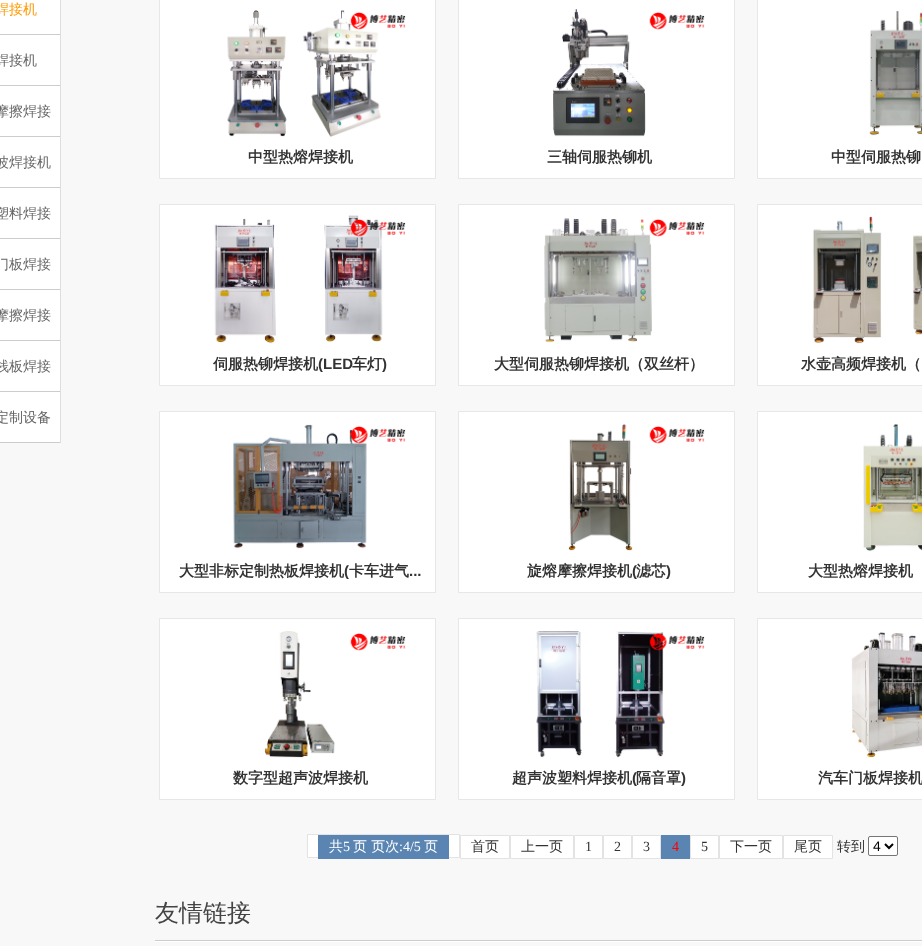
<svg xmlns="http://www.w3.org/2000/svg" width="922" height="946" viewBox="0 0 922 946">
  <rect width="100%" height="100%" fill="#f8f8f8"/>
  <path d="M60 0h1v443H60z" fill="#dedede"/>
  <path d="M0 0h60v34H0z" fill="#fff"/>
  <path d="M0 34h60v1H0z" fill="#ccc"/>
  <path d="M0 35h60v50H0z" fill="#fff"/>
  <path d="M0 85h60v1H0z" fill="#ccc"/>
  <path d="M0 86h60v50H0z" fill="#fff"/>
  <path d="M0 136h60v1H0z" fill="#ccc"/>
  <path d="M0 137h60v50H0z" fill="#fff"/>
  <path d="M0 187h60v1H0z" fill="#ccc"/>
  <path d="M0 188h60v50H0z" fill="#fff"/>
  <path d="M0 238h60v1H0z" fill="#ccc"/>
  <path d="M0 239h60v50H0z" fill="#fff"/>
  <path d="M0 289h60v1H0z" fill="#ccc"/>
  <path d="M0 290h60v50H0z" fill="#fff"/>
  <path d="M0 340h60v1H0z" fill="#ccc"/>
  <path d="M0 341h60v50H0z" fill="#fff"/>
  <path d="M0 391h60v1H0z" fill="#ccc"/>
  <path d="M0 392h60v50H0z" fill="#fff"/>
  <path d="M0 442h60v1H0z" fill="#ccc"/>
  <path d="M159.5 -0.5h276v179H159.5z" fill="#fff" stroke="#e7e7e7"/>
  <image x="227" y="10" width="179" height="127" href="img/1.png"/>
  <path d="M458.5 -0.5h276v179H458.5z" fill="#fff" stroke="#e7e7e7"/>
  <image x="553" y="9" width="152" height="128" href="img/2.png"/>
  <path d="M757.5 -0.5h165v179H757.5z" fill="#fff" stroke="#e7e7e7"/>
  <image x="869" y="11" width="53" height="125" href="img/3.png"/>
  <path d="M159.5 204.5h276v181H159.5z" fill="#fff" stroke="#e7e7e7"/>
  <image x="214" y="215" width="192" height="129" href="img/4.png"/>
  <path d="M458.5 204.5h276v181H458.5z" fill="#fff" stroke="#e7e7e7"/>
  <image x="544" y="218" width="161" height="125" href="img/5.png"/>
  <path d="M757.5 204.5h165v181H757.5z" fill="#fff" stroke="#e7e7e7"/>
  <image x="812" y="216" width="110" height="128" href="img/6.png"/>
  <path d="M159.5 411.5h276v181H159.5z" fill="#fff" stroke="#e7e7e7"/>
  <image x="233" y="424" width="173" height="125" href="img/7.png"/>
  <path d="M458.5 411.5h276v181H458.5z" fill="#fff" stroke="#e7e7e7"/>
  <image x="568" y="424" width="137" height="127" href="img/8.png"/>
  <path d="M757.5 411.5h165v181H757.5z" fill="#fff" stroke="#e7e7e7"/>
  <image x="863" y="424" width="59" height="128" href="img/9.png"/>
  <path d="M159.5 618.5h276v181H159.5z" fill="#fff" stroke="#e7e7e7"/>
  <image x="264" y="631" width="142" height="127" href="img/10.png"/>
  <path d="M458.5 618.5h276v181H458.5z" fill="#fff" stroke="#e7e7e7"/>
  <image x="536" y="631" width="169" height="127" href="img/11.png"/>
  <path d="M757.5 618.5h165v181H757.5z" fill="#fff" stroke="#e7e7e7"/>
  <image x="851" y="632" width="71" height="126" href="img/12.png"/>
  <path d="M307.5 834.5h152v23H307.5z" fill="#fff" stroke="#e3e3e3"/>
  <path d="M318 835h131v24H318z" fill="#5a85b2"/>
  <path d="M460.5 835.5h49v23H460.5z" fill="#fff" stroke="#e3e3e3"/>
  <path d="M510.5 835.5h63v23H510.5z" fill="#fff" stroke="#e3e3e3"/>
  <path d="M574.5 835.5h28v23H574.5z" fill="#fff" stroke="#e3e3e3"/>
  <path d="M603.5 835.5h28v23H603.5z" fill="#fff" stroke="#e3e3e3"/>
  <path d="M632.5 835.5h28v23H632.5z" fill="#fff" stroke="#e3e3e3"/>
  <path d="M661 835h29v24H661z" fill="#5a85b2"/>
  <path d="M690.5 835.5h28v23H690.5z" fill="#fff" stroke="#e3e3e3"/>
  <path d="M719.5 835.5h63v23H719.5z" fill="#fff" stroke="#e3e3e3"/>
  <path d="M783.5 835.5h49v23H783.5z" fill="#fff" stroke="#e3e3e3"/>
  <rect x="868.5" y="836.5" width="29" height="19" rx="1.5" fill="#fff" stroke="#767676"/>
  <path d="M885 844L889 848L893 844" fill="none" stroke="#000" stroke-width="2"/>
  <image x="155" y="940" width="767" height="2" href="img/13.png"/>
  <text x="-5" y="14" font-family="WenQuanYi Zen Hei" font-size="14" font-weight="500" fill="#f90">焊接机</text>
  <g font-family="WenQuanYi Zen Hei" font-size="14" font-weight="500" fill="#666">
    <text x="-5" y="65">焊接机</text>
    <text x="-5" y="116">摩擦焊接</text>
    <text x="-5" y="167">波焊接机</text>
    <text x="-5" y="218">塑料焊接</text>
    <text x="-5" y="269">门板焊接</text>
    <text x="-5" y="320">摩擦焊接</text>
    <text x="-5" y="371">栈板焊接</text>
    <text x="-5" y="422">定制设备</text>
  </g>
  <g font-family="WenQuanYi Zen Hei" font-size="15" font-weight="bold" fill="#333">
    <text x="248" y="162">中型热熔焊接机</text>
    <text x="547" y="162">三轴伺服热铆机</text>
    <text x="831" y="162">中型伺服热铆</text>
    <text x="213" y="369">伺服热铆焊接机</text>
  </g>
  <text x="318" y="369" font-family="Liberation Sans" font-size="15" font-weight="bold" fill="#333">(LED</text>
  <text x="352" y="369" font-family="WenQuanYi Zen Hei" font-size="15" font-weight="bold" fill="#333">车灯</text>
  <text x="382" y="369" font-family="Liberation Sans" font-size="15" font-weight="bold" fill="#333">)</text>
  <g font-family="WenQuanYi Zen Hei" font-size="15" font-weight="bold" fill="#333">
    <text x="494" y="369">大型伺服热铆焊接机（双丝杆）</text>
    <text x="801" y="369">水壶高频焊接机（</text>
    <text x="179" y="576">大型非标定制热板焊接机</text>
  </g>
  <text x="344" y="576" font-family="Liberation Sans" font-size="15" font-weight="bold" fill="#333">(</text>
  <text x="349" y="576" font-family="WenQuanYi Zen Hei" font-size="15" font-weight="bold" fill="#333">卡车进气</text>
  <text x="409" y="576" font-family="Liberation Sans" font-size="15" font-weight="bold" fill="#333">...</text>
  <text x="527" y="576" font-family="WenQuanYi Zen Hei" font-size="15" font-weight="bold" fill="#333">旋熔摩擦焊接机</text>
  <text x="632" y="576" font-family="Liberation Sans" font-size="15" font-weight="bold" fill="#333">(</text>
  <text x="636" y="576" font-family="WenQuanYi Zen Hei" font-size="15" font-weight="bold" fill="#333">滤芯</text>
  <text x="666" y="576" font-family="Liberation Sans" font-size="15" font-weight="bold" fill="#333">)</text>
  <g font-family="WenQuanYi Zen Hei" font-size="15" font-weight="bold" fill="#333">
    <text x="808" y="576">大型热熔焊接机</text>
    <text x="233" y="783">数字型超声波焊接机</text>
    <text x="512" y="783">超声波塑料焊接机</text>
  </g>
  <text x="632" y="783" font-family="Liberation Sans" font-size="15" font-weight="bold" fill="#333">(</text>
  <text x="636" y="783" font-family="WenQuanYi Zen Hei" font-size="15" font-weight="bold" fill="#333">隔音罩</text>
  <text x="681" y="783" font-family="Liberation Sans" font-size="15" font-weight="bold" fill="#333">)</text>
  <text x="818" y="783" font-family="WenQuanYi Zen Hei" font-size="15" font-weight="bold" fill="#333">汽车门板焊接机</text>
  <text x="329" y="851" font-family="WenQuanYi Zen Hei" font-size="14" font-weight="500" fill="#fff">共</text>
  <text x="343" y="851" font-family="Liberation Serif" font-size="14" fill="#fff">5</text>
  <text x="353" y="851" font-family="WenQuanYi Zen Hei" font-size="14" font-weight="500" fill="#fff">页 页次</text>
  <text x="399" y="851" font-family="Liberation Serif" font-size="14" fill="#fff">:4/5</text>
  <text x="424" y="851" font-family="WenQuanYi Zen Hei" font-size="14" font-weight="500" fill="#fff">页</text>
  <g font-family="WenQuanYi Zen Hei" font-size="14" font-weight="500" fill="#333">
    <text x="471" y="851">首页</text>
    <text x="521" y="851">上一页</text>
  </g>
  <g font-family="Liberation Serif" font-size="14" fill="#333">
    <text x="585" y="851">1</text>
    <text x="614" y="851">2</text>
    <text x="643" y="851">3</text>
  </g>
  <text x="672" y="851" font-family="Liberation Serif" font-size="14" fill="#f00">4</text>
  <text x="701" y="851" font-family="Liberation Serif" font-size="14" fill="#333">5</text>
  <g font-family="WenQuanYi Zen Hei" font-size="14" font-weight="500" fill="#333">
    <text x="730" y="851">下一页</text>
    <text x="794" y="851">尾页</text>
    <text x="837" y="851">转到</text>
  </g>
  <text x="873" y="851" font-family="Liberation Sans" font-size="14" fill="#000">4</text>
  <text x="155" y="921" font-family="WenQuanYi Zen Hei" font-size="24" font-weight="500" fill="#444">友情链接</text>
</svg>
